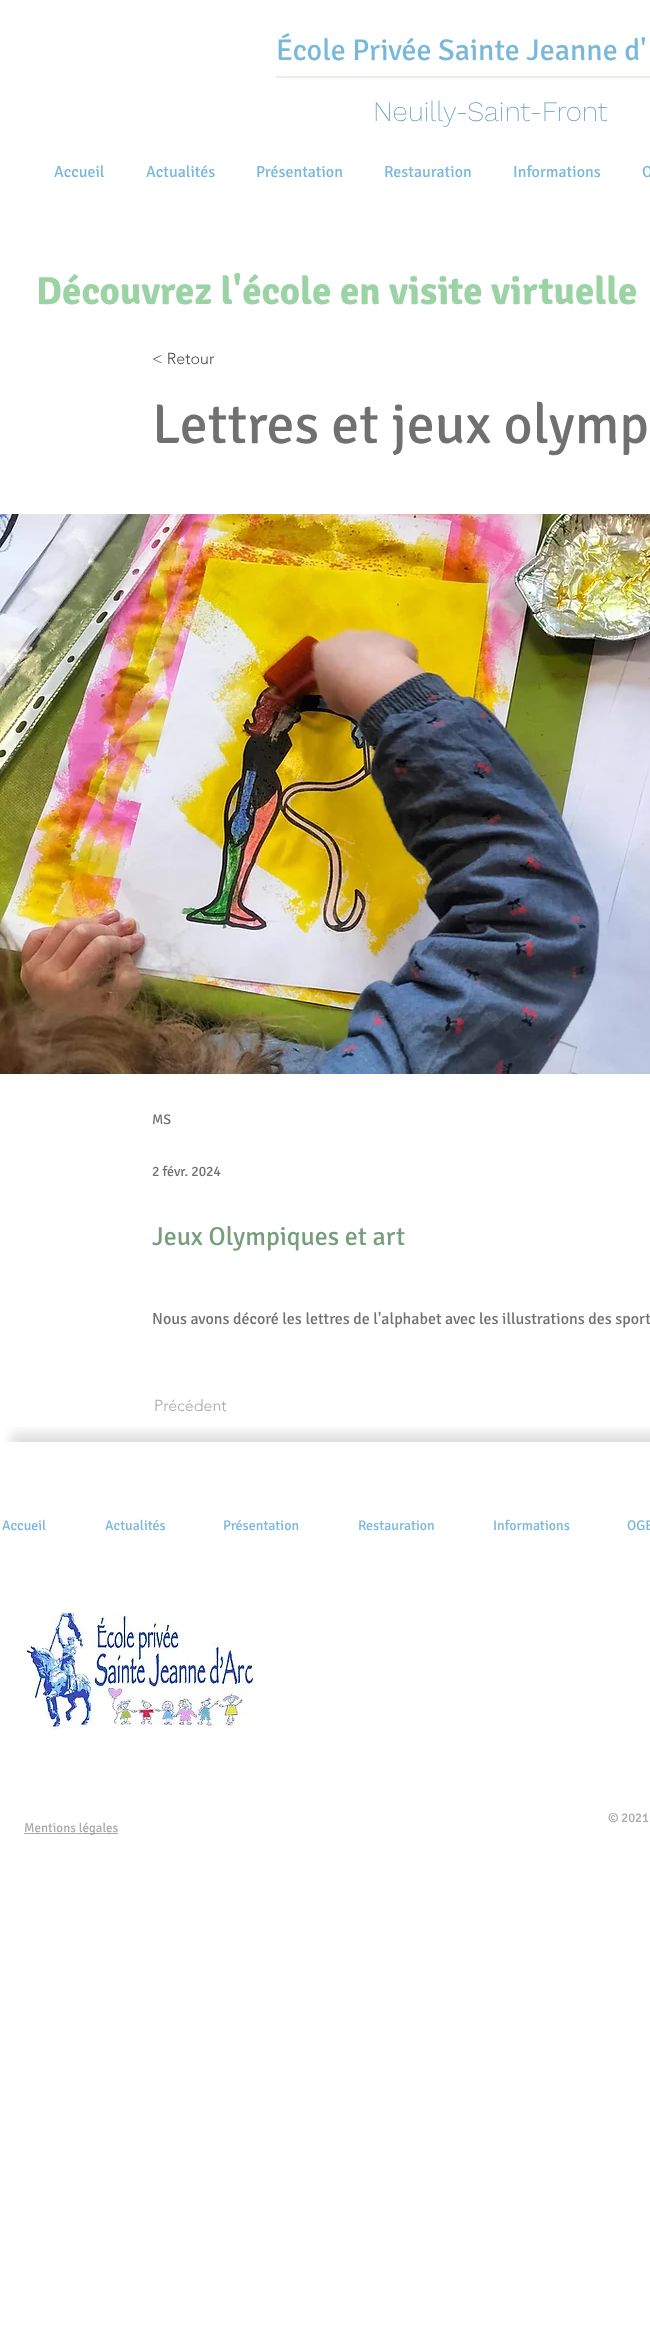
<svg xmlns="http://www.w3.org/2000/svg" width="650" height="2350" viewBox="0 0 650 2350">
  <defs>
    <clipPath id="clip1"><path d="M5 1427h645v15H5z"/></clipPath>
  </defs>
  <rect width="100%" height="100%" fill="#fff"/>
  <path d="M276 76h374v2H276z" fill="#dff2e3"/>
  <image x="0" y="514" width="650" height="560" href="img/1.png"/>
  <g clip-path="url(#clip1)">
    <path d="M11 1433h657v475H11z" fill="#00000021" filter="blur(6px)"/>
  </g>
  <image x="24" y="1612" width="233" height="118" href="img/2.png"/>
  <path d="M24 1833h94v1H24z" fill="#aaa8a8"/>
  <text x="276" y="60" font-family="Signika" font-size="30" fill="#77b8db">École Privée Sainte Jeanne d'</text>
  <text x="373" y="121" font-family="Work Sans" font-size="28" font-weight="200" fill="#5f9abf">Neuilly-Saint-Front</text>
  <g font-family="Signika" font-size="16" fill="#77b8db">
    <text x="54" y="177">Accueil</text>
    <text x="146" y="177">Actualités</text>
    <text x="256" y="177">Présentation</text>
    <text x="384" y="177">Restauration</text>
    <text x="513" y="177">Informations</text>
    <text x="642" y="177">O</text>
  </g>
  <text x="36" y="304" font-family="Signika" font-size="39" font-weight="bold" fill="#9cd3a5">Découvrez l'école en visite virtuelle</text>
  <text x="152" y="364" font-family="'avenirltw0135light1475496'" font-size="16" font-weight="300" fill="#4a4a4a">&lt; Retour</text>
  <text x="152" y="443" font-family="Signika" font-size="56" fill="#717070">Lettres et jeux olymp</text>
  <g font-family="Signika" font-size="14" fill="#717070">
    <text x="152" y="1124">MS</text>
    <text x="152" y="1176">2 févr. 2024</text>
  </g>
  <text x="152" y="1245" font-family="Signika" font-size="26" fill="#759e7c">Jeux Olympiques et art</text>
  <text x="152" y="1324" font-family="Signika" font-size="16" fill="#717070">Nous avons décoré les lettres de l'alphabet avec les illustrations des sport</text>
  <text x="154" y="1411" font-family="'avenirltw0135light1475496'" font-size="16" font-weight="300" fill="#aaa8a8">Précédent</text>
  <g font-family="Signika" font-size="14" fill="#77b8db">
    <text x="2" y="1530">Accueil</text>
    <text x="105" y="1530">Actualités</text>
    <text x="223" y="1530">Présentation</text>
    <text x="358" y="1530">Restauration</text>
    <text x="493" y="1530">Informations</text>
    <text x="627" y="1530">OGE</text>
  </g>
  <g font-family="Signika" font-size="13" fill="#aaa8a8">
    <text x="608" y="1822">© 2021</text>
    <text x="24" y="1832">Mentions légales</text>
  </g>
</svg>
